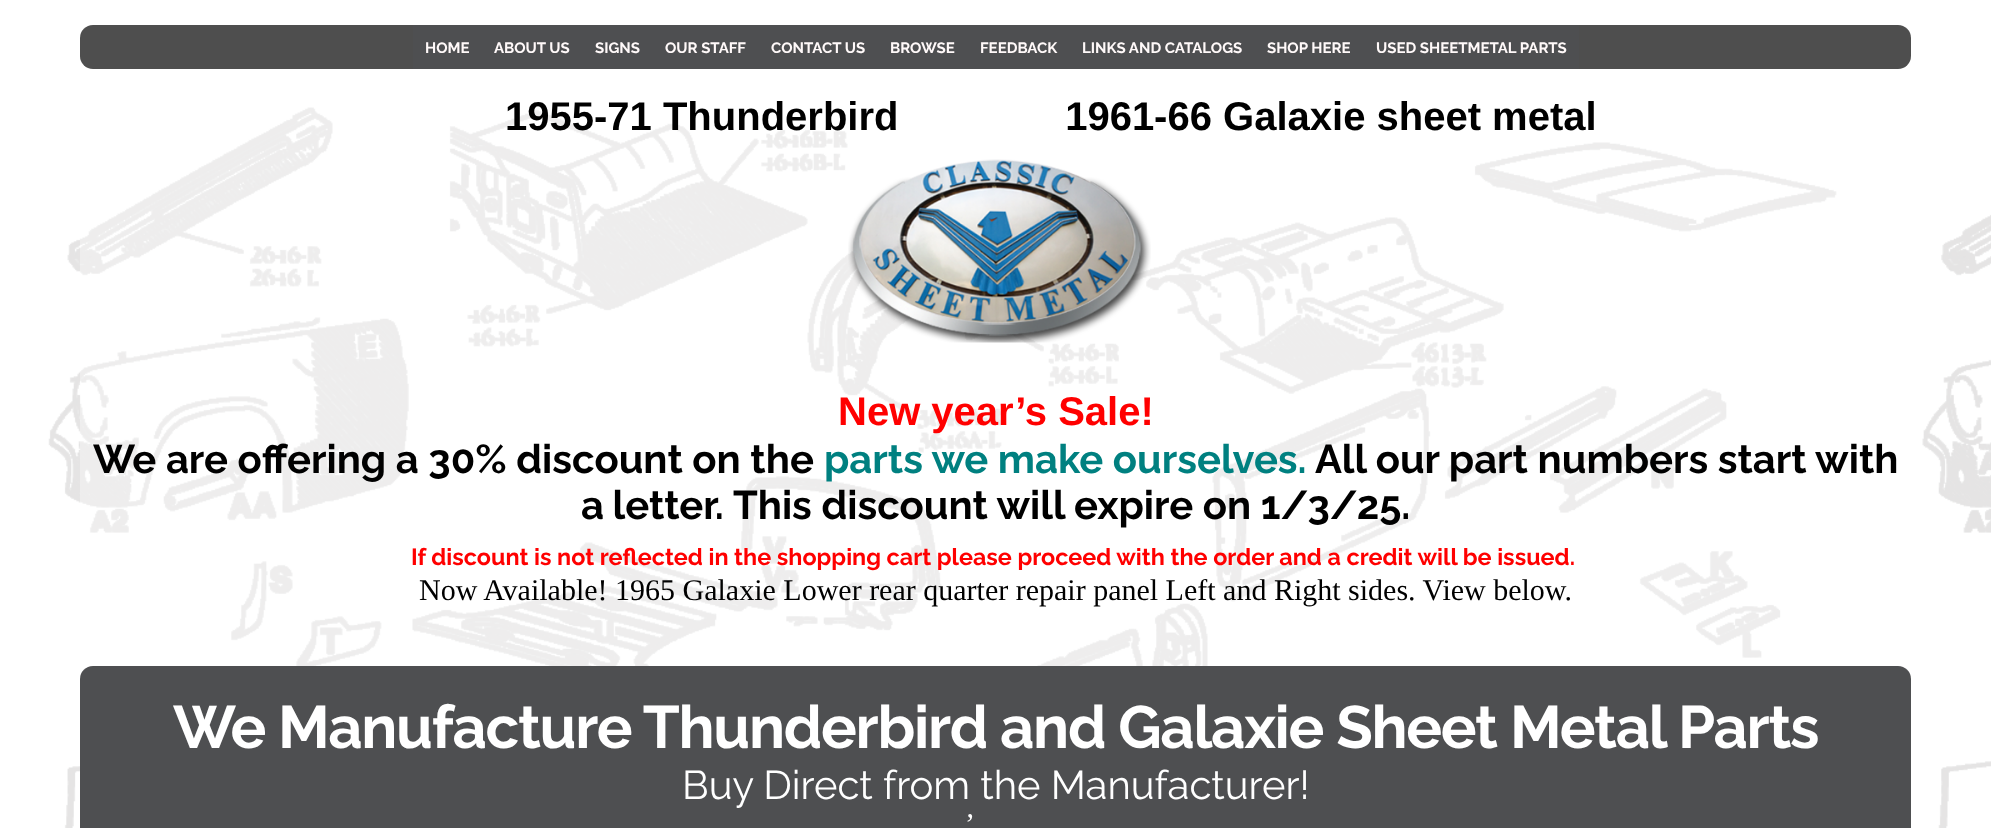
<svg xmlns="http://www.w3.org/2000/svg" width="1991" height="828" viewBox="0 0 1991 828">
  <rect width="100%" height="100%" fill="#fff"/>
  <image x="48" y="107" width="1943" height="721" href="img/1.png"/>
  <rect x="80" y="25" width="1831" height="44" rx="13" fill="#4e4e4e"/>
  <path d="M413 25h1166v44H413z" fill="#4e4f51"/>
  <image x="848" y="159" width="303" height="184" href="img/2.png"/>
  <rect x="80" y="666" width="1831" height="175" rx="13" fill="#4e4f51"/>
  <g font-family="Raleway" font-size="15" font-weight="bold" fill="#fff9f9">
    <text x="425" y="53">HOME</text>
    <text x="494" y="53">ABOUT US</text>
    <text x="595" y="53">SIGNS</text>
    <text x="665" y="53">OUR STAFF</text>
    <text x="771" y="53">CONTACT US</text>
    <text x="890" y="53">BROWSE</text>
    <text x="980" y="53">FEEDBACK</text>
    <text x="1082" y="53">LINKS AND CATALOGS</text>
    <text x="1267" y="53">SHOP HERE</text>
    <text x="1376" y="53">USED SHEETMETAL PARTS</text>
  </g>
  <text x="505" y="130" font-family="Liberation Sans" font-size="40" font-weight="bold" fill="#000" xml:space="preserve">1955-71 Thunderbird               1961-66 Galaxie sheet metal</text>
  <text x="838" y="425" font-family="Liberation Sans" font-size="40" font-weight="bold" fill="#f00">New year’s Sale!</text>
  <text x="93" y="473" font-family="Raleway" font-size="40" font-weight="bold" fill="#000">We are offering a 30% discount on the</text>
  <text x="824" y="473" font-family="Raleway" font-size="40" font-weight="bold" fill="#008080">parts we make ourselves.</text>
  <g font-family="Raleway" font-size="40" font-weight="bold" fill="#000">
    <text x="1315" y="473">All our part numbers start with</text>
    <text x="581" y="519" word-spacing="-1">a letter.</text>
    <text x="733" y="519">This discount will expire on 1/3/25.</text>
  </g>
  <text x="411" y="565" font-family="Raleway" font-size="23.35" font-weight="bold" fill="#f00">If discount is not reflected in the shopping cart please proceed with the order and a credit will be issued.</text>
  <text x="419" y="600" font-family="Liberation Serif" font-size="30" fill="#000">Now Available! 1965 Galaxie Lower rear quarter repair panel Left and Right sides. View below.</text>
  <text x="173" y="748" font-family="Raleway" font-size="59.75" font-weight="bold" letter-spacing="-1.25" fill="#fff">We Manufacture Thunderbird and Galaxie Sheet Metal Parts</text>
  <text x="682" y="799" font-family="Raleway" font-size="40" fill="#fff">Buy Direct from the Manufacturer!</text>
  <text x="965" y="834" font-family="Liberation Serif" font-size="30" fill="#fff">’</text>
</svg>
